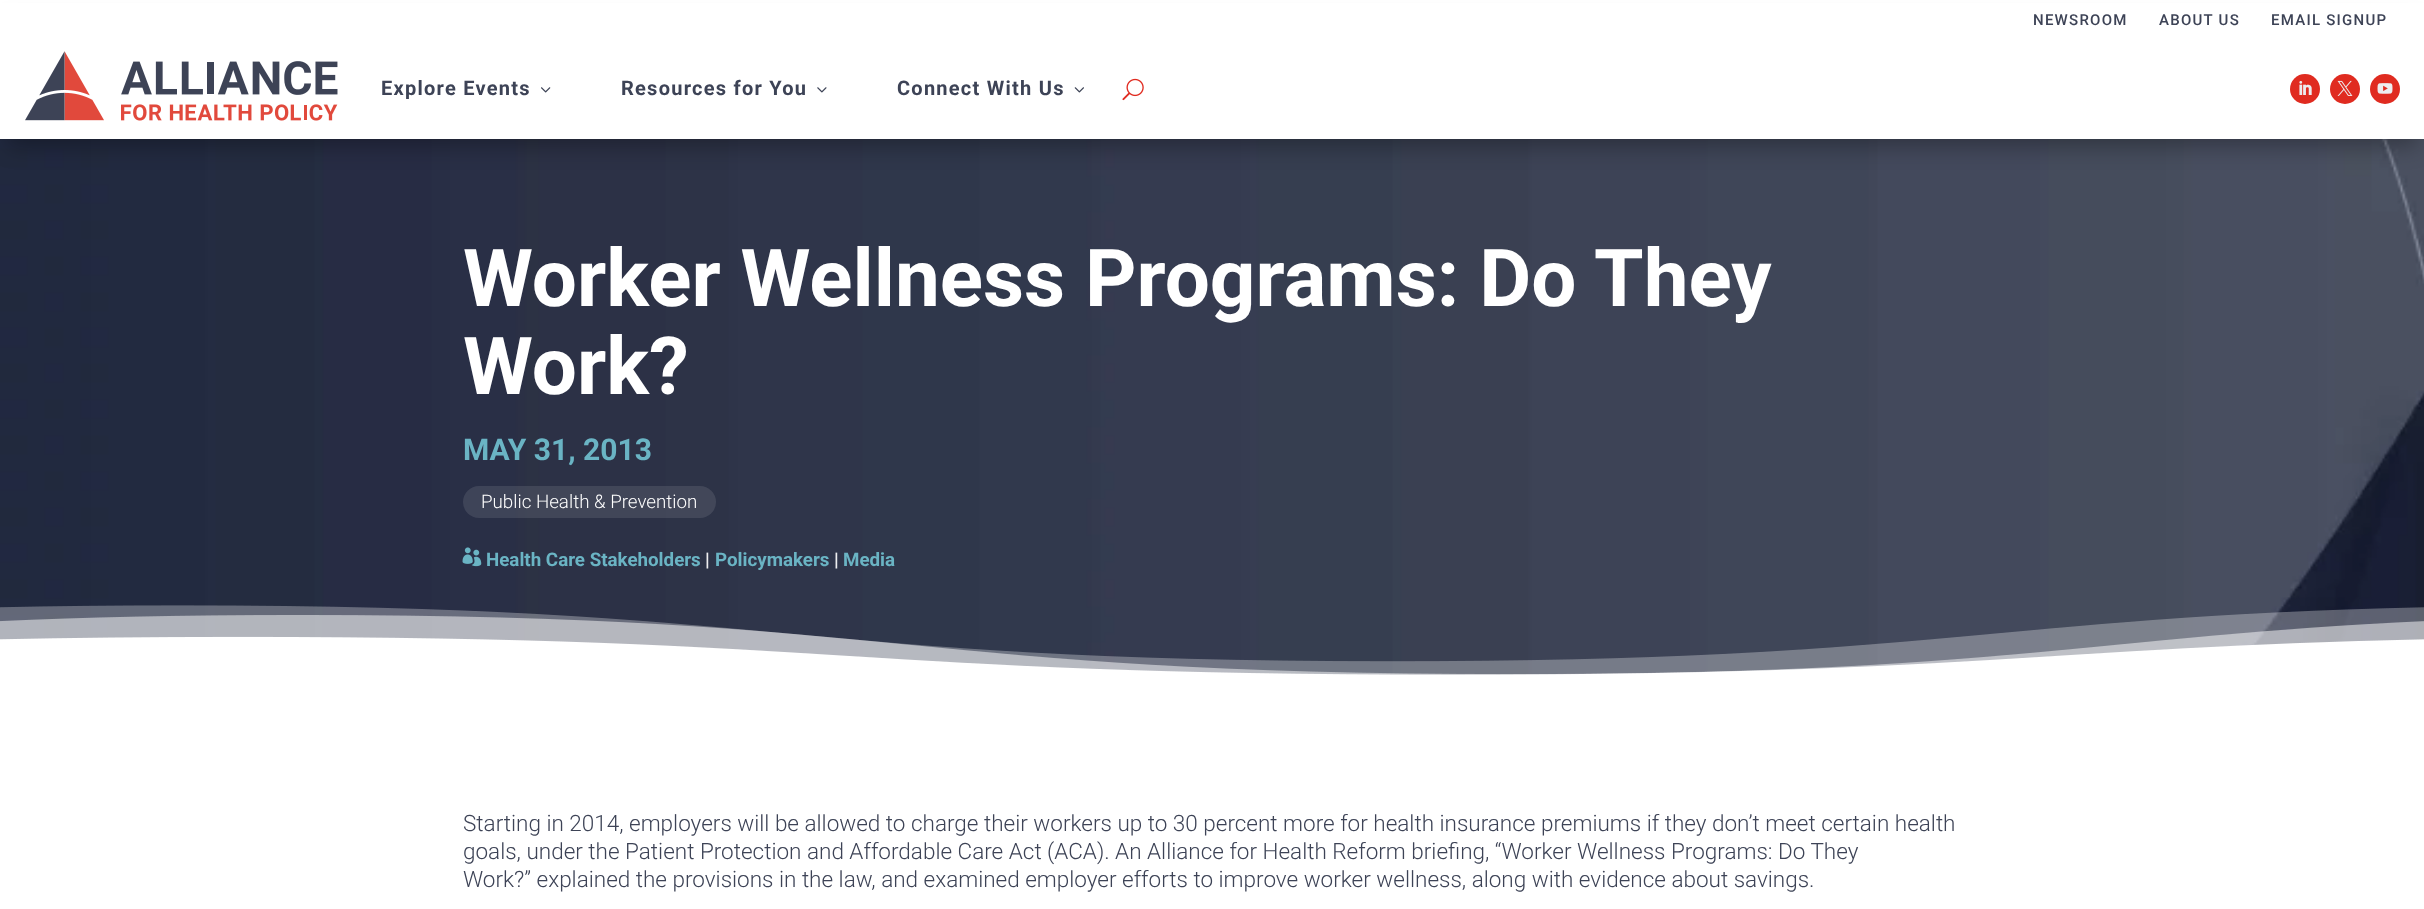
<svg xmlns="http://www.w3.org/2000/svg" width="2424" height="909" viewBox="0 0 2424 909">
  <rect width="100%" height="100%" fill="#fff"/>
  <image x="0" y="139" width="2424" height="536" href="img/9.png"/>
  <path d="M8 23h2410v123H8z" fill="#0000004d" filter="blur(11px)"/>
  <path d="M0 3h2424v136H0z" fill="#fff"/>
  <image x="25" y="51" width="313" height="70" href="img/1.png"/>
  <image x="541" y="87" width="10" height="6" href="img/2.png"/>
  <image x="817" y="87" width="10" height="6" href="img/3.png"/>
  <image x="1074" y="87" width="10" height="6" href="img/4.png"/>
  <image x="1122" y="78" width="22" height="23" href="img/5.png"/>
  <circle cx="2305" cy="89" r="15" fill="#e02b20"/>
  <image x="2299" y="80" width="13" height="15" href="img/6.png"/>
  <circle cx="2345" cy="89" r="15" fill="#e02b20"/>
  <image x="2337" y="80" width="16" height="16" href="img/7.png"/>
  <circle cx="2385" cy="89" r="15" fill="#e02b20"/>
  <image x="2377" y="83" width="16" height="11" href="img/8.png"/>
  <rect x="463" y="486" width="253" height="32" rx="16" fill="#ffffff1a"/>
  <image x="462" y="547" width="20" height="20" href="img/10.png"/>
  <image x="0" y="605" width="2424" height="91" href="img/11.png"/>
  <g font-family="Roboto" font-size="15" font-weight="500" letter-spacing="1.25" fill="#3d4356">
    <text x="2033" y="25">NEWSROOM</text>
    <text x="2159" y="25">ABOUT US</text>
    <text x="2271" y="25">EMAIL SIGNUP</text>
  </g>
  <g font-family="Roboto" font-size="20" font-weight="bold" letter-spacing="1.25" fill="#3d4356">
    <text x="381" y="95">Explore Events</text>
    <text x="621" y="95">Resources for You</text>
    <text x="897" y="95">Connect With Us</text>
  </g>
  <g font-family="Roboto" font-size="80" font-weight="bold" fill="#fff">
    <text x="463" y="306">Worker Wellness Programs: Do They</text>
    <text x="463" y="394">Work?</text>
  </g>
  <text x="463" y="460" font-family="Roboto" font-size="30" font-weight="bold" fill="#6ab4c4">MAY 31, 2013</text>
  <text x="481" y="508" font-family="Roboto" font-size="18.75" font-weight="300" fill="#fff">Public Health &amp; Prevention</text>
  <text x="486" y="566" font-family="Roboto" font-size="18.75" font-weight="bold" fill="#6ab4c4">Health Care Stakeholders</text>
  <text x="705" y="566" font-family="Roboto" font-size="18.75" font-weight="bold" fill="#ededef">|</text>
  <text x="715" y="566" font-family="Roboto" font-size="18.75" font-weight="bold" fill="#6ab4c4">Policymakers</text>
  <text x="834" y="566" font-family="Roboto" font-size="18.75" font-weight="bold" fill="#ededef">|</text>
  <text x="843" y="566" font-family="Roboto" font-size="18.75" font-weight="bold" fill="#6ab4c4">Media</text>
  <g font-family="Roboto" font-size="22.5" font-weight="300" fill="#3d4356">
    <text x="463" y="831">Starting in 2014, employers will be allowed to charge their workers up to 30 percent more for health insurance premiums if they don’t meet certain health</text>
    <text x="463" y="859">goals, under the Patient Protection and Affordable Care Act (ACA). An Alliance for Health Reform briefing, “Worker Wellness Programs: Do They</text>
    <text x="463" y="887">Work?” explained the provisions in the law, and examined employer efforts to improve worker wellness, along with evidence about savings.</text>
  </g>
</svg>
